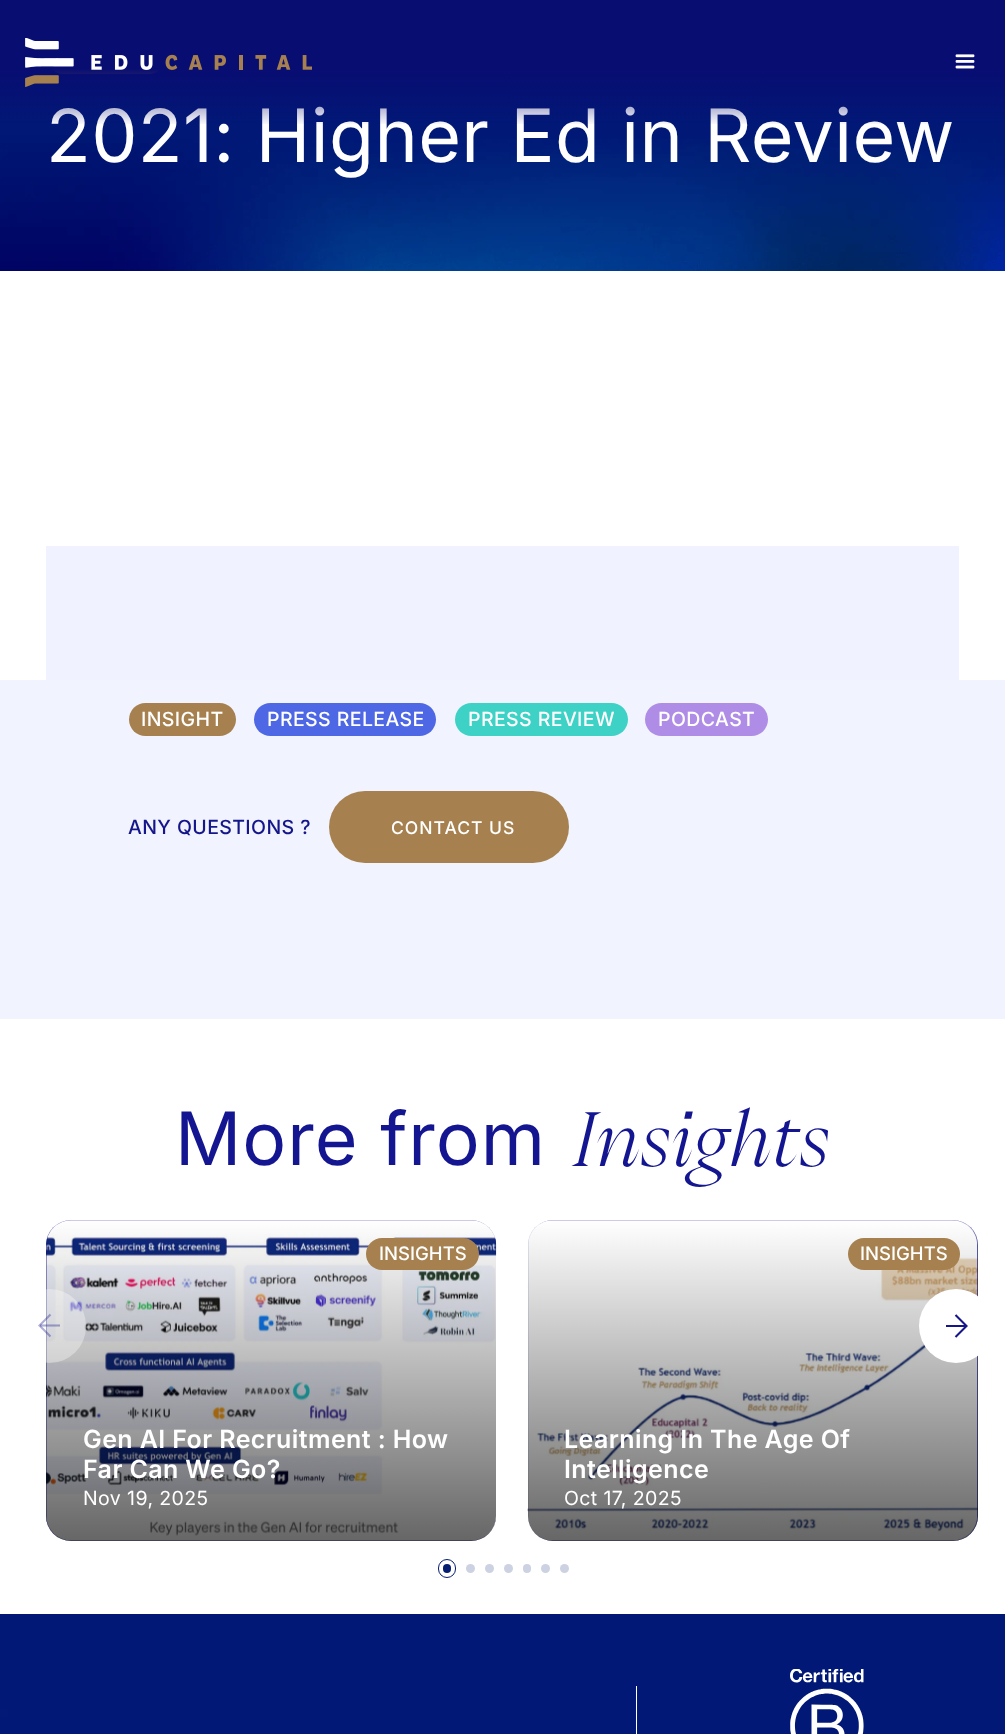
<svg xmlns="http://www.w3.org/2000/svg" width="1005" height="1734" viewBox="0 0 1005 1734">
  <defs>
    <linearGradient id="g1" gradientUnits="userSpaceOnUse" x1="271" y1="1220" x2="271" y2="1541"><stop offset="0" stop-color="#000" stop-opacity="0"/><stop offset="1" stop-color="#000" stop-opacity="0.6"/></linearGradient>
    <linearGradient id="g2" gradientUnits="userSpaceOnUse" x1="753" y1="1220" x2="753" y2="1541"><stop offset="0" stop-color="#000" stop-opacity="0"/><stop offset="1" stop-color="#000" stop-opacity="0.6"/></linearGradient>
    <linearGradient id="g3" gradientUnits="userSpaceOnUse" x1="503" y1="0" x2="503" y2="125"><stop offset="0.55" stop-color="#080d72"/><stop offset="1" stop-color="#080d72" stop-opacity="0.01"/></linearGradient>
  </defs>
  <rect width="100%" height="100%" fill="#fff"/>
  <image x="0" y="69" width="1005" height="1665" href="img/1.png"/>
  <rect x="46" y="39" width="120" height="35" rx="17.5" fill="#a6814f"/>
  <path d="M0 271h1005v409H0z" fill="#fff"/>
  <path d="M0 680h1005v339H0z" fill="#f1f3ff"/>
  <path d="M46 546h913v134H46z" fill="#f0f3ff"/>
  <rect x="129" y="703" width="107" height="33" rx="16.5" fill="#a6814f"/>
  <rect x="254" y="703" width="182" height="33" rx="16.5" fill="#4e67e4"/>
  <rect x="455" y="703" width="173" height="33" rx="16.5" fill="#3ed1c5"/>
  <rect x="645" y="703" width="123" height="33" rx="16.5" fill="#af8de6"/>
  <rect x="329" y="791" width="240" height="72" rx="36" fill="#a6814f"/>
  <path d="M0 1019h1005v595H0z" fill="#fff"/>
  <rect x="46" y="1220" width="450" height="321" rx="25" fill="#141689"/>
  <image x="46" y="1220" width="451" height="321" href="img/4.png"/>
  <rect x="46" y="1220" width="450" height="321" rx="25" fill="url(#g1)"/>
  <rect x="13" y="1289" width="73" height="74" rx="36.5" fill="#ffffff59"/>
  <path d="M50.5 1336.5L39.5 1325.5L50.5 1314.5" fill="none" stroke="#14168959" stroke-width="2.1"/>
  <path d="M40 1325.5H60" fill="none" stroke="#14168959" stroke-width="2.1"/>
  <rect x="366" y="1238" width="113" height="32" rx="16" fill="#a6814f"/>
  <rect x="528" y="1220" width="450" height="321" rx="25" fill="#141689"/>
  <image x="527" y="1220" width="451" height="321" href="img/5.png"/>
  <rect x="528" y="1220" width="450" height="321" rx="25" fill="url(#g2)"/>
  <rect x="848" y="1238" width="112" height="32" rx="16" fill="#a6814f"/>
  <rect x="438.5" y="1559.5" width="17" height="18" rx="8.5" fill="none" stroke="#061e71"/>
  <rect x="443" y="1564" width="8" height="9" rx="4" fill="#061e71"/>
  <circle cx="470.5" cy="1568.5" r="4.5" fill="#cdd2e3"/>
  <circle cx="489.5" cy="1568.5" r="4.5" fill="#cdd2e3"/>
  <circle cx="508.5" cy="1568.5" r="4.5" fill="#cdd2e3"/>
  <rect x="523" y="1564" width="8" height="9" rx="4" fill="#cdd2e3"/>
  <circle cx="545.5" cy="1568.5" r="4.5" fill="#cdd2e3"/>
  <circle cx="564.5" cy="1568.5" r="4.5" fill="#cdd2e3"/>
  <circle cx="956" cy="1326" r="37" fill="#fff"/>
  <path d="M955.5 1315L966.5 1326L955.5 1337" fill="none" stroke="#141689" stroke-width="2.1"/>
  <path d="M946 1325h20v2H946z" fill="#141689"/>
  <path d="M636 1686h1v48H636z" fill="#fff"/>
  <image x="790" y="1669" width="74" height="65" href="img/6.png"/>
  <text x="46" y="162" font-family="Inter" font-size="73.4" letter-spacing="0.4" fill="#fff">2021: Higher Ed in Review</text>
  <path d="M0 0h1005v124H0z" fill="url(#g3)"/>
  <image x="955" y="54" width="20" height="15" href="img/3.png"/>
  <image x="25" y="38" width="287" height="49" href="img/2.png"/>
  <g font-family="Inter" font-size="19.5" font-weight="500" letter-spacing="0.4" fill="#fff">
    <text x="141" y="726">INSIGHT</text>
    <text x="267" y="726">PRESS RELEASE</text>
    <text x="468" y="726">PRESS REVIEW</text>
    <text x="658" y="726">PODCAST</text>
  </g>
  <text x="128" y="834" font-family="Inter" font-size="19.5" font-weight="500" letter-spacing="0.4" fill="#141689">ANY QUESTIONS ?</text>
  <text x="391" y="834" font-family="Inter" font-size="17.5" font-weight="500" letter-spacing="1" fill="#fff">CONTACT US</text>
  <text x="175" y="1165" font-family="Inter" font-size="73.4" letter-spacing="1" fill="#131591">More from</text>
  <text x="574" y="1166" font-family="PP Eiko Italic" font-size="73.4" font-weight="300" font-style="italic" letter-spacing="1" fill="#131591">Insights</text>
  <text x="379" y="1260" font-family="Inter" font-size="18.5" font-weight="500" fill="#fff">INSIGHTS</text>
  <g font-family="Inter" font-size="25" font-weight="600" letter-spacing="0.4" fill="#fff">
    <text x="83" y="1448">Gen AI For Recruitment : How</text>
    <text x="83" y="1478">Far Can We Go?</text>
  </g>
  <text x="83" y="1505" font-family="Inter" font-size="19.5" letter-spacing="0.4" fill="#fff">Nov 19, 2025</text>
  <text x="860" y="1260" font-family="Inter" font-size="18.5" font-weight="500" fill="#fff">INSIGHTS</text>
  <g font-family="Inter" font-size="25" font-weight="600" letter-spacing="0.4" fill="#fff">
    <text x="564" y="1448">Learning In The Age Of</text>
    <text x="564" y="1478">Intelligence</text>
  </g>
  <text x="564" y="1505" font-family="Inter" font-size="19.5" letter-spacing="0.4" fill="#fff">Oct 17, 2025</text>
</svg>
